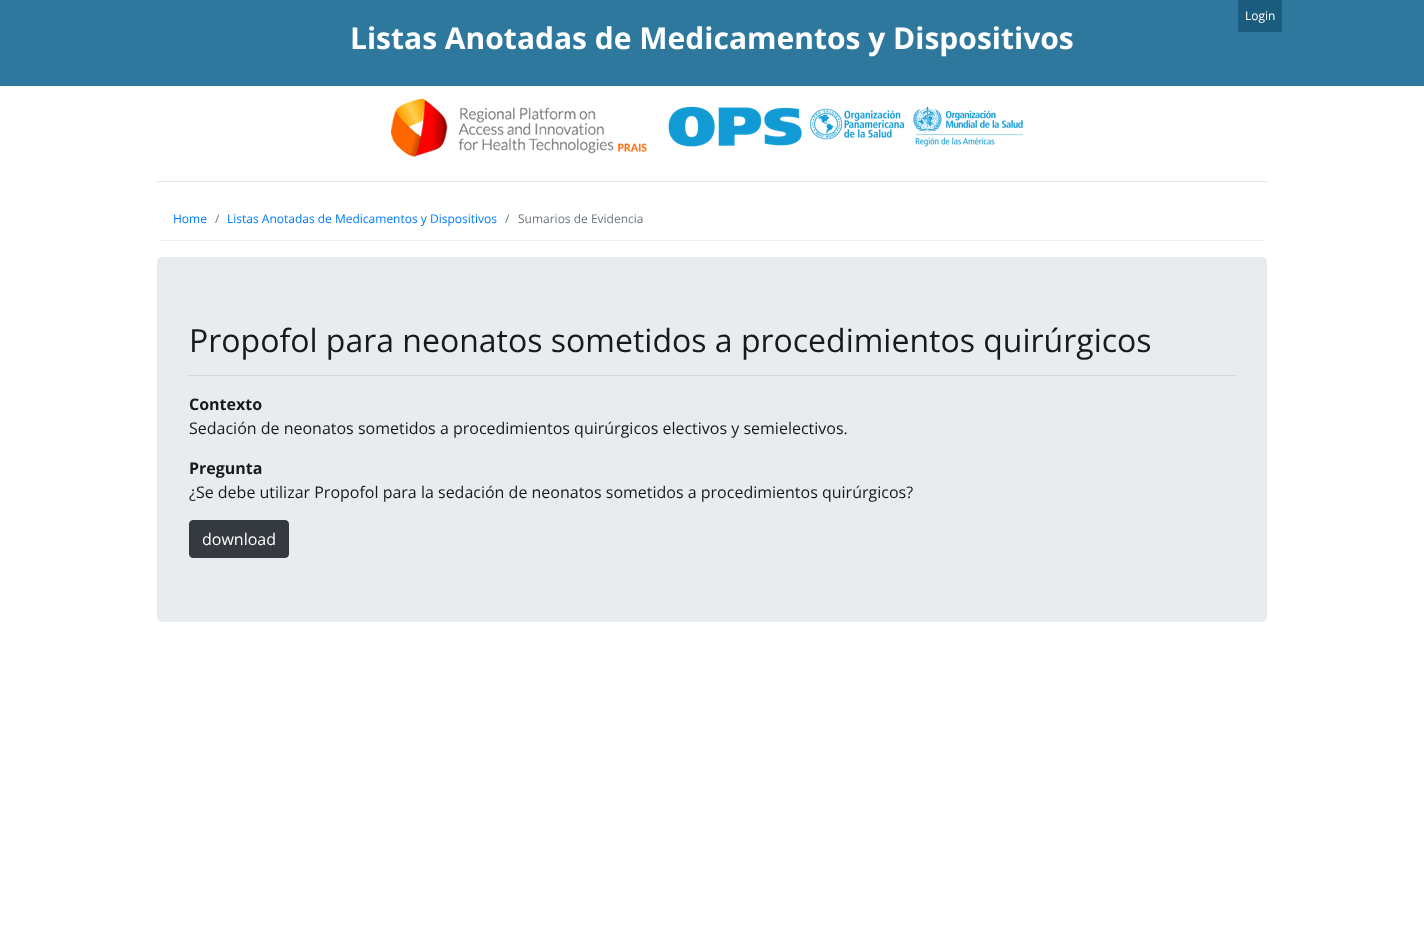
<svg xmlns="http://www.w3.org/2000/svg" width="1424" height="938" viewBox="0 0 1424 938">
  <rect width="100%" height="100%" fill="#fff"/>
  <path d="M0 0h1424v86H0z" fill="#2e789e"/>
  <path d="M1238 0h44v32H1238z" fill="#1b5c7e"/>
  <image x="391" y="99" width="632" height="58" href="img/1.png"/>
  <path d="M157 181h1110v1H157z" fill="#e6e6e6"/>
  <path d="M159 240h1106v1H159z" fill="#efefef"/>
  <rect x="157" y="257" width="1110" height="365" rx="5" fill="#e9ecef"/>
  <path d="M189 375h1046v1H189z" fill="#d2d4d7"/>
  <rect x="189.5" y="520.5" width="99" height="37" rx="3.5" fill="#343a40" stroke="#343a40"/>
  <text x="1245" y="20" font-family="Open Sans" font-size="12" fill="#fff">Login</text>
  <text x="350" y="49" font-family="Open Sans" font-size="30" font-weight="bold" fill="#fff">Listas Anotadas de Medicamentos y Dispositivos</text>
  <text x="173" y="223" font-family="Open Sans" font-size="12" fill="#007bff">Home</text>
  <text x="215" y="223" font-family="Open Sans" font-size="12" fill="#6c757d">/</text>
  <text x="227" y="223" font-family="Open Sans" font-size="12" fill="#007bff">Listas Anotadas de Medicamentos y Dispositivos</text>
  <g font-family="Open Sans" font-size="12" fill="#6c757d">
    <text x="505" y="223">/</text>
    <text x="518" y="223">Sumarios de Evidencia</text>
  </g>
  <text x="189" y="352" font-family="Open Sans" font-size="32" fill="#18191a">Propofol para neonatos sometidos a procedimientos quirúrgicos</text>
  <text x="189" y="410" font-family="Open Sans" font-size="16" font-weight="bold" fill="#18191a">Contexto</text>
  <text x="189" y="434" font-family="Open Sans" font-size="16" fill="#18191a">Sedación de neonatos sometidos a procedimientos quirúrgicos electivos y semielectivos.</text>
  <text x="189" y="474" font-family="Open Sans" font-size="16" font-weight="bold" fill="#18191a">Pregunta</text>
  <text x="189" y="498" font-family="Open Sans" font-size="16" fill="#18191a">¿Se debe utilizar Propofol para la sedación de neonatos sometidos a procedimientos quirúrgicos?</text>
  <text x="202" y="545" font-family="Open Sans" font-size="16" fill="#fff">download</text>
</svg>
